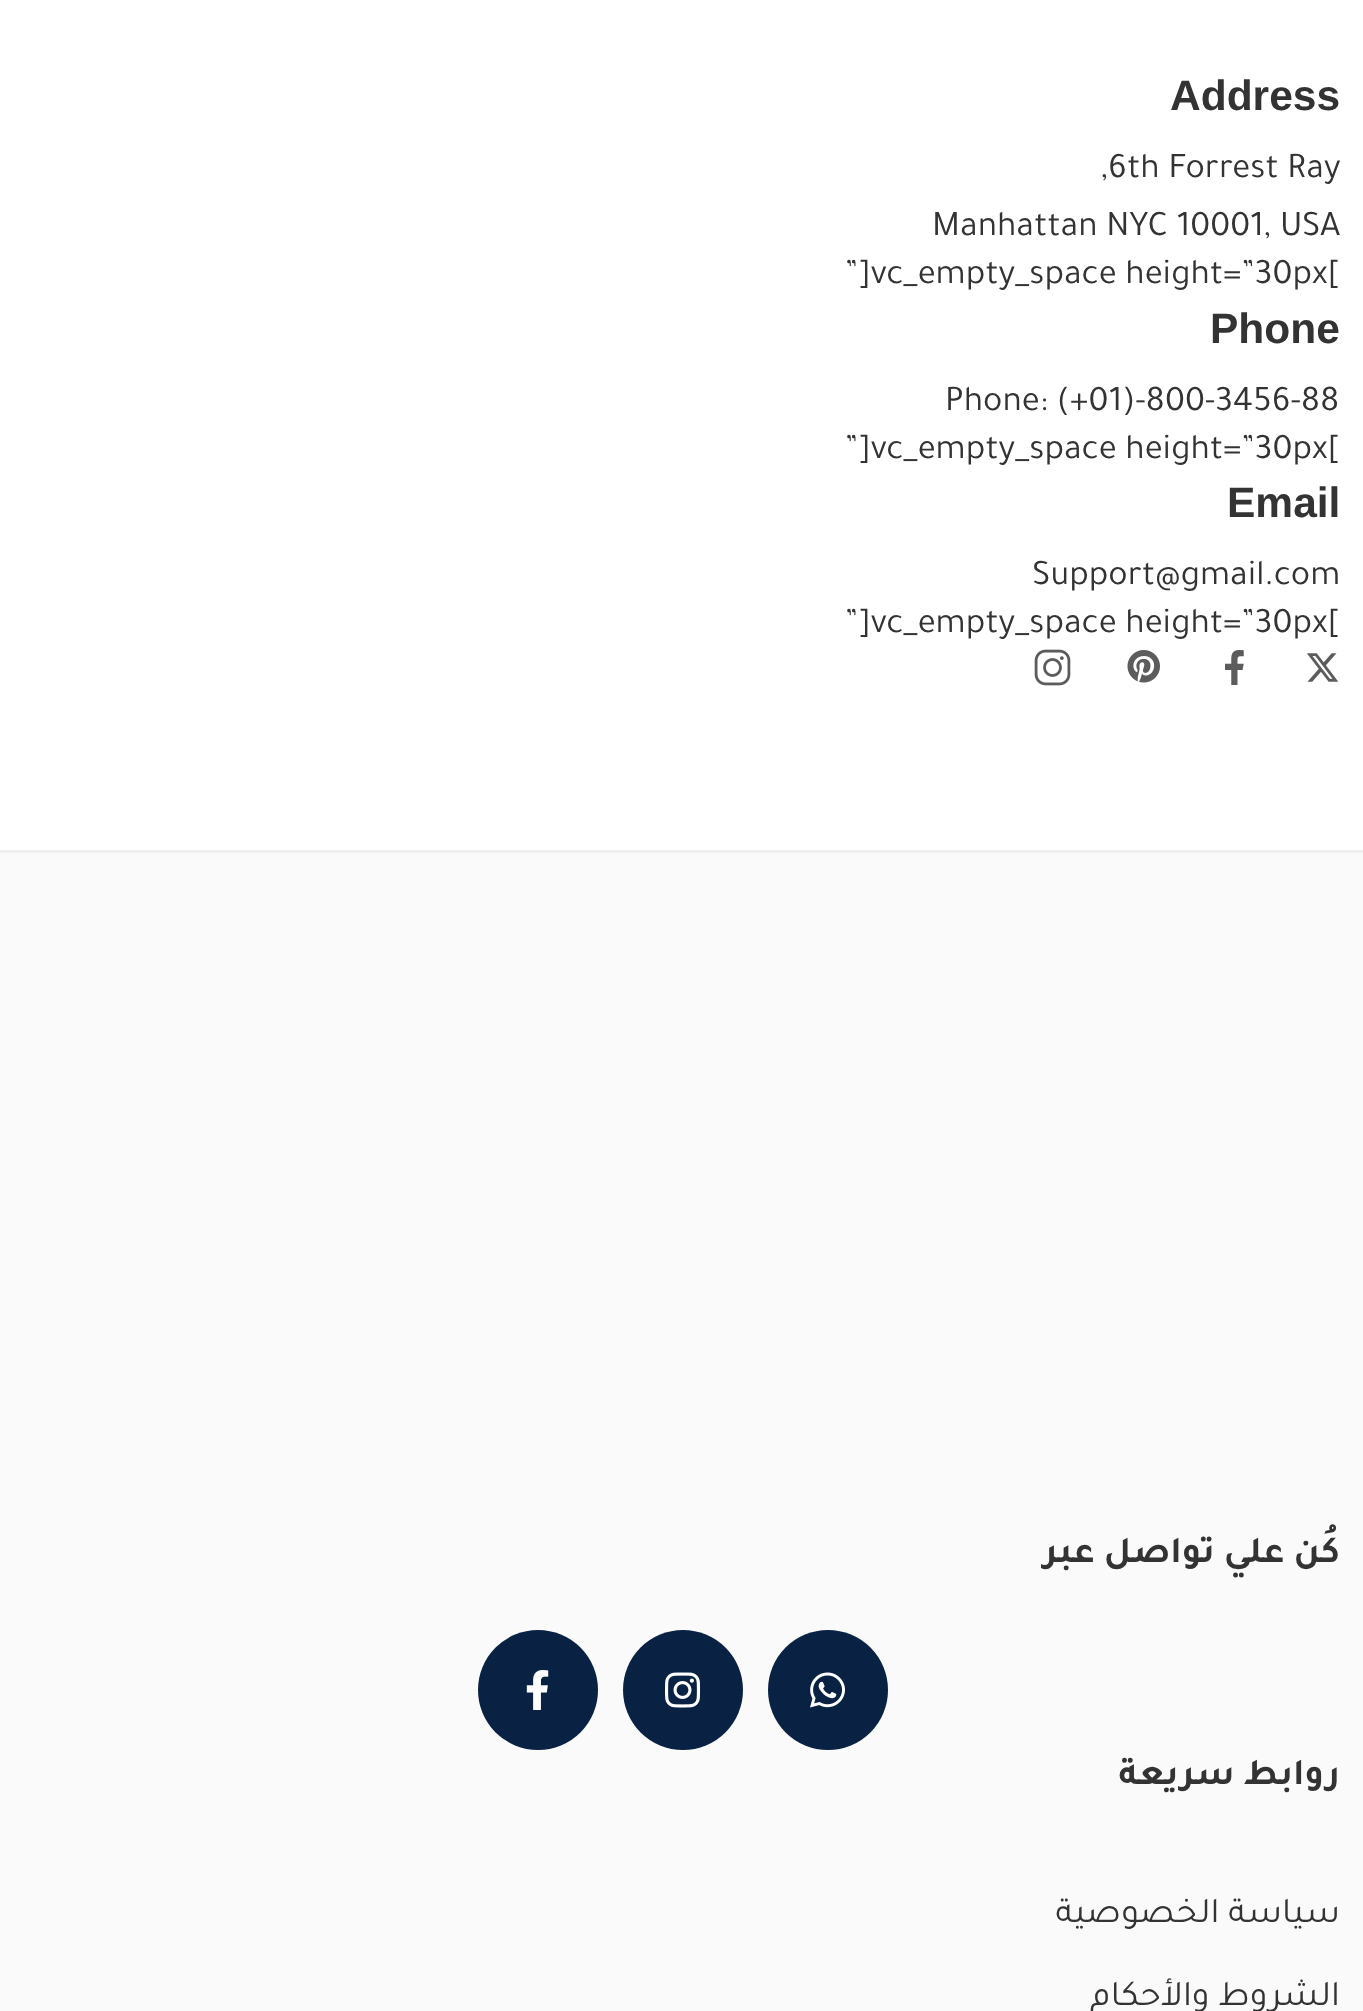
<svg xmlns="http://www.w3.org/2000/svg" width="1363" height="2011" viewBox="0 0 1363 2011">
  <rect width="100%" height="100%" fill="#fff"/>
  <image x="1034" y="649" width="37" height="37" href="img/1.png"/>
  <image x="1127" y="650" width="33" height="33" href="img/2.png"/>
  <image x="1225" y="650" width="19" height="35" href="img/3.png"/>
  <image x="1307" y="653" width="32" height="29" href="img/4.png"/>
  <path d="M0 853h1363v1158H0z" fill="#fafafa"/>
  <path d="M0 850h1363v3H0z" fill="#efefef"/>
  <circle cx="538" cy="1690" r="60" fill="#092143"/>
  <image x="526" y="1670" width="23" height="40" href="img/5.png"/>
  <circle cx="683" cy="1690" r="60" fill="#092143"/>
  <image x="665" y="1672" width="35" height="36" href="img/6.png"/>
  <circle cx="828" cy="1690" r="60" fill="#092143"/>
  <image x="810" y="1672" width="35" height="36" href="img/7.png"/>
  <text x="1170" y="110" font-family="Liberation Sans" font-size="42.5" font-weight="bold" fill="#333">Address</text>
  <g font-family="Tajawal" font-size="36.25" fill="#333">
    <text x="1101" y="177">,6th Forrest Ray</text>
    <text x="932" y="235">Manhattan NYC 10001, USA</text>
    <text x="845" y="283">”]vc_empty_space height=”30px[</text>
  </g>
  <text x="1210" y="343" font-family="Liberation Sans" font-size="42.5" font-weight="bold" fill="#333">Phone</text>
  <g font-family="Tajawal" font-size="36.25" fill="#333">
    <text x="945" y="410">Phone: (+01)-800-3456-88</text>
    <text x="845" y="458">”]vc_empty_space height=”30px[</text>
  </g>
  <text x="1227" y="517" font-family="Liberation Sans" font-size="42.5" font-weight="bold" fill="#333">Email</text>
  <g font-family="Tajawal" font-size="36.25" fill="#333">
    <text x="1032" y="584">Support@gmail.com</text>
    <text x="845" y="632">”]vc_empty_space height=”30px[</text>
  </g>
  <g font-family="Tajawal" font-size="37.5" font-weight="bold" direction="rtl" fill="#333">
    <text x="1340" y="1562">كُن علي تواصل عبر</text>
    <text x="1340" y="1784">روابط سريعة</text>
  </g>
  <g font-family="Tajawal" font-size="36.25" direction="rtl" fill="#333">
    <text x="1340" y="1922">سياسة الخصوصية</text>
    <text x="1340" y="2005">الشروط والأحكام</text>
  </g>
</svg>
